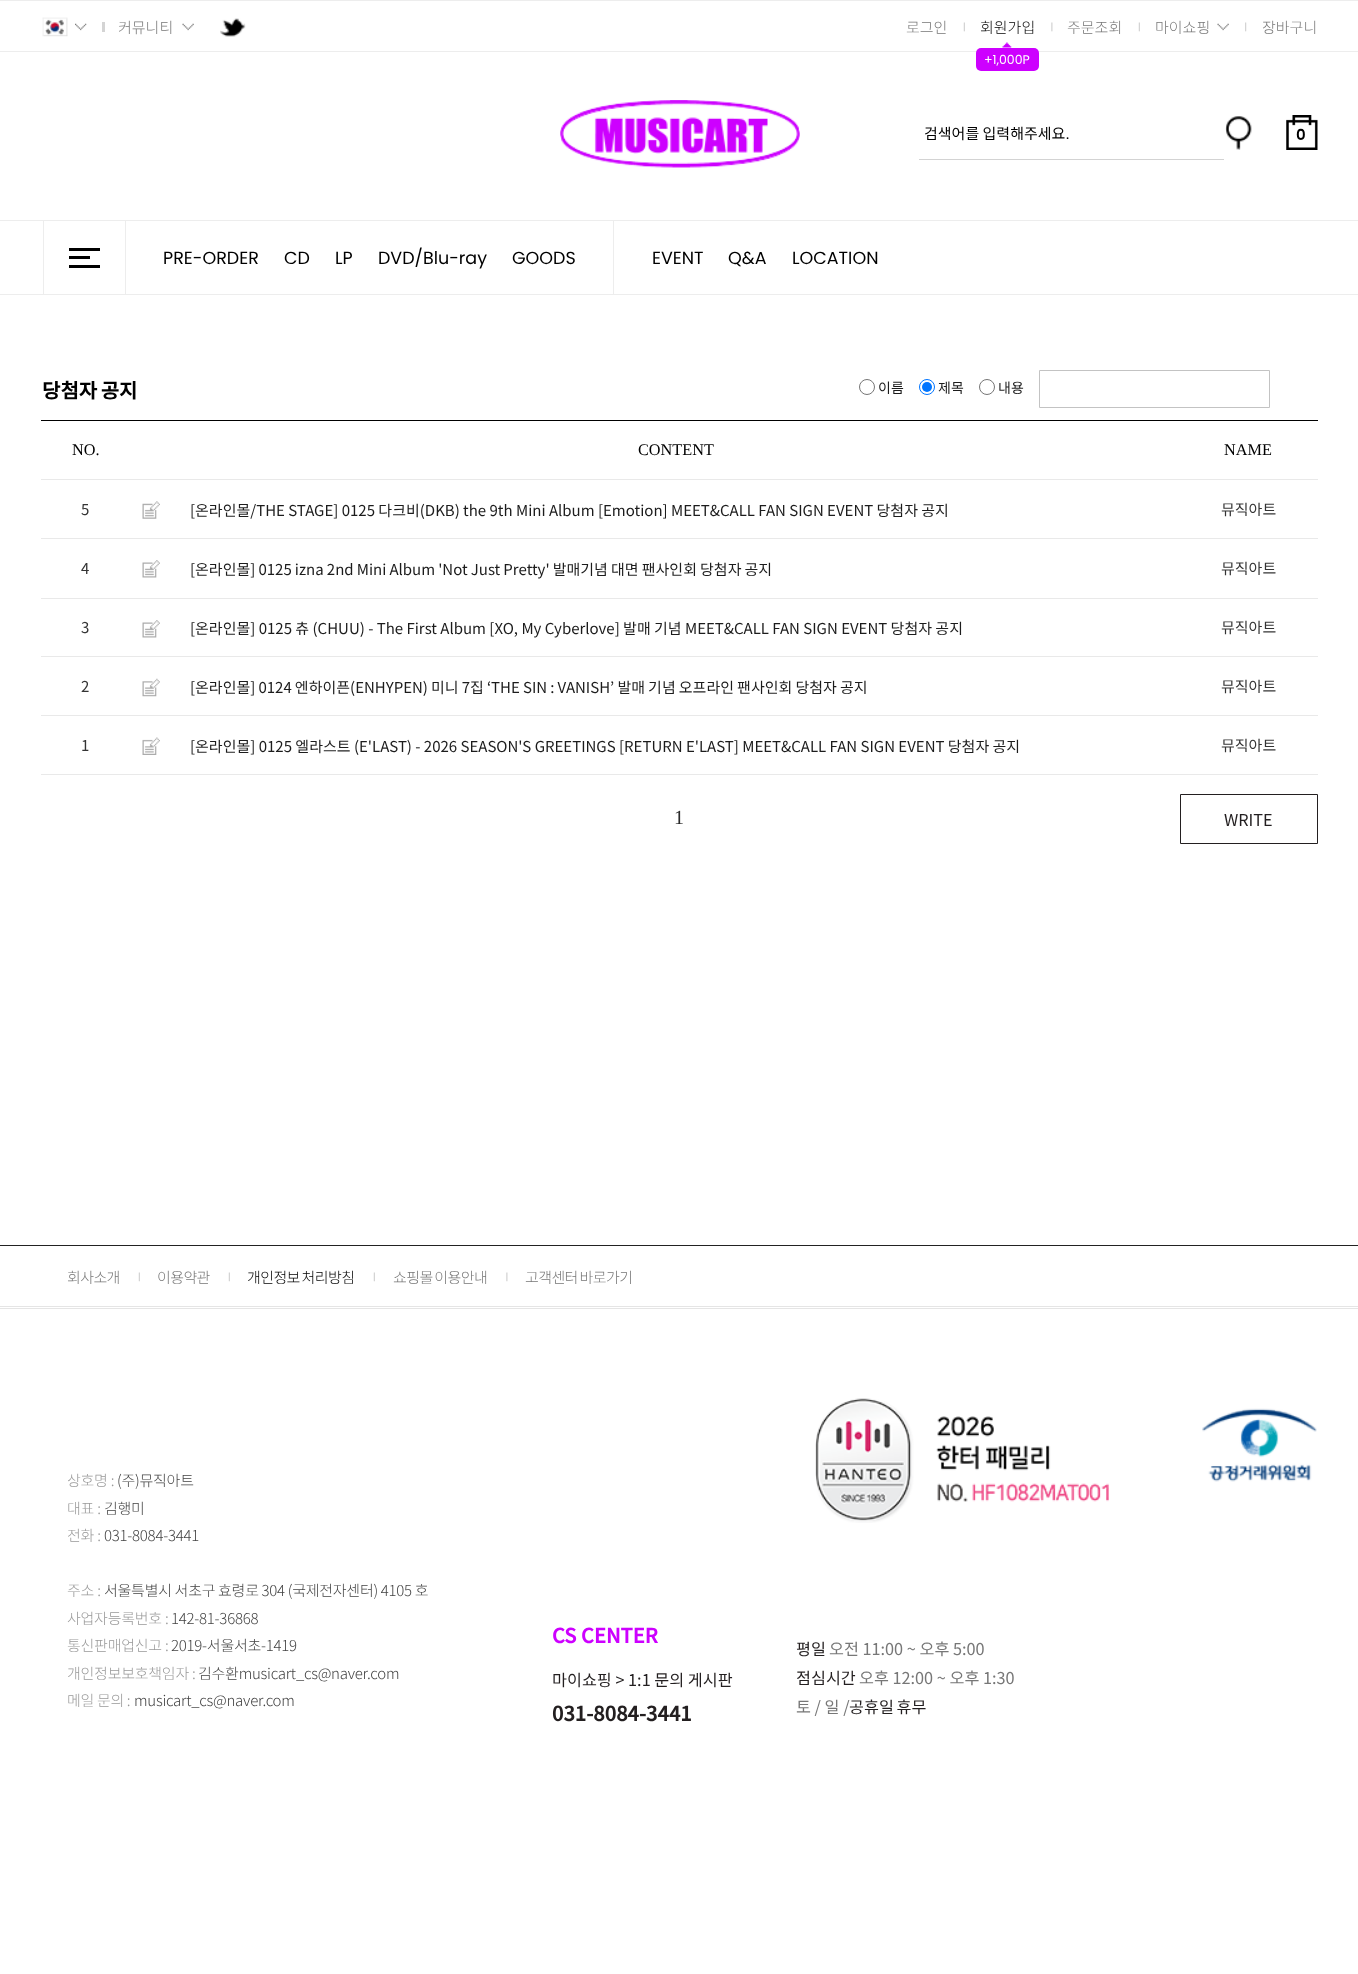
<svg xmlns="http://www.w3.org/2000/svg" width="1358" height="1974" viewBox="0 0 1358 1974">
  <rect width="100%" height="100%" fill="#fff"/>
  <path d="M0 0h1358v1H0z" fill="#ededed"/>
  <image x="75" y="23" width="12" height="8" href="img/1.png"/>
  <image x="42" y="17" width="26" height="20" href="img/2.png"/>
  <path d="M102 22h3v10H102z" fill="#d4d4d4"/>
  <image x="182" y="23" width="12" height="8" href="img/3.png"/>
  <image x="220" y="18" width="26" height="19" href="img/4.png"/>
  <image x="963" y="22" width="2" height="10" href="img/5.png"/>
  <image x="1002" y="42" width="10" height="6" href="img/6.png"/>
  <path d="M0 51h1358v1H0z" fill="#ededed"/>
  <rect x="976" y="48" width="63" height="23" rx="5" fill="#cd00ff"/>
  <image x="1051" y="22" width="2" height="10" href="img/7.png"/>
  <image x="1138" y="22" width="2" height="10" href="img/5.png"/>
  <image x="1217" y="23" width="12" height="8" href="img/3.png"/>
  <image x="1245" y="22" width="2" height="10" href="img/8.png"/>
  <image x="560" y="100" width="240" height="68" href="img/9.png"/>
  <path d="M919 159h305v1H919z" fill="#d3d3d3"/>
  <image x="1225" y="116" width="27" height="34" href="img/10.png"/>
  <image x="1286" y="115" width="32" height="35" href="img/11.png"/>
  <path d="M0 220h1358v1H0z" fill="#ededed"/>
  <path d="M0 294h1358v1H0z" fill="#ededed"/>
  <path d="M125 221h1v73H125z" fill="#ededed"/>
  <path d="M43 221h1v73H43z" fill="#ededed"/>
  <path d="M69 248h31v3H69z" fill="#000"/>
  <path d="M69 256h21v3H69z" fill="#000"/>
  <path d="M69 265h31v3H69z" fill="#000"/>
  <path d="M613 221h1v73H613z" fill="#ededed"/>
  <circle cx="867" cy="387" r="7.5" fill="none" stroke="#767676"/>
  <circle cx="927" cy="387" r="7.5" fill="none" stroke="#0075ff"/>
  <circle cx="927" cy="387" r="5" fill="#0075ff"/>
  <circle cx="987" cy="387" r="7.5" fill="none" stroke="#767676"/>
  <path d="M1039.5 370.5h230v37H1039.5z" fill="none" stroke="#c3c3c3"/>
  <path d="M41 420h1277v1H41z" fill="#000"/>
  <path d="M41 479h1277v1H41z" fill="#e9e9e9"/>
  <image x="142" y="501" width="18" height="18" href="img/12.png"/>
  <path d="M41 538h1277v1H41z" fill="#e9e9e9"/>
  <image x="142" y="560" width="18" height="18" href="img/13.png"/>
  <path d="M41 598h1277v1H41z" fill="#e9e9e9"/>
  <image x="142" y="620" width="18" height="18" href="img/13.png"/>
  <path d="M41 656h1277v1H41z" fill="#e9e9e9"/>
  <image x="142" y="678" width="18" height="19" href="img/14.png"/>
  <path d="M41 715h1277v1H41z" fill="#e9e9e9"/>
  <image x="142" y="737" width="18" height="18" href="img/15.png"/>
  <path d="M41 774h1277v1H41z" fill="#e9e9e9"/>
  <path d="M1180.5 794.5h137v49H1180.5z" fill="none" stroke="#231f20"/>
  <path d="M0 1245h1358v1H0z" fill="#222"/>
  <path d="M0 1306h1358v1H0z" fill="#e5e5e5"/>
  <image x="138" y="1272" width="2" height="10" href="img/16.png"/>
  <image x="228" y="1272" width="2" height="10" href="img/16.png"/>
  <image x="373" y="1272" width="2" height="10" href="img/16.png"/>
  <image x="506" y="1272" width="2" height="10" href="img/17.png"/>
  <path d="M0 1308h1358v1H0z" fill="#e5e5e5"/>
  <image x="815" y="1398" width="294" height="125" href="img/18.png"/>
  <image x="1202" y="1408" width="115" height="74" href="img/19.png"/>
  <g font-family="Noto Sans KR" font-size="15" font-weight="300" fill="#777">
    <text x="118" y="33">커뮤니티</text>
    <text x="906" y="33">로그인</text>
  </g>
  <text x="980" y="33" font-family="Noto Sans KR" font-size="15" font-weight="300" fill="#000">회원가입</text>
  <text x="984" y="64" font-family="Poppins" font-size="12.5" fill="#fff">+1,000P</text>
  <g font-family="Noto Sans KR" font-size="15" font-weight="300" fill="#777">
    <text x="1067" y="33">주문조회</text>
    <text x="1155" y="33">마이쇼핑</text>
    <text x="1262" y="33">장바구니</text>
  </g>
  <text x="924" y="139" font-family="Noto Sans KR" font-size="15" fill="#000">검색어를 입력해주세요</text>
  <text x="1066" y="139" font-family="Poppins" font-size="15" fill="#000">.</text>
  <text x="1296" y="140" font-family="Poppins" font-size="15" font-weight="600" fill="#000">0</text>
  <g font-family="Poppins" font-size="17.5" fill="#000">
    <text x="163" y="264">PRE-ORDER</text>
    <text x="284" y="264">CD</text>
    <text x="335" y="264">LP</text>
    <text x="378" y="264">DVD/Blu-ray</text>
    <text x="512" y="264">GOODS</text>
    <text x="652" y="264">EVENT</text>
    <text x="728" y="264">Q&amp;A</text>
    <text x="792" y="264">LOCATION</text>
  </g>
  <text x="42" y="398" word-spacing="-1" font-family="Noto Sans KR" font-size="20" font-weight="bold" fill="#000">당첨자 공지</text>
  <g font-family="Noto Sans KR" font-size="14" fill="#1c1c1c">
    <text x="878" y="393">이름</text>
    <text x="938" y="393">제목</text>
    <text x="998" y="393">내용</text>
  </g>
  <g font-family="Liberation Serif" font-size="16.25" fill="#000">
    <text x="72" y="455">NO.</text>
    <text x="638" y="455">CONTENT</text>
    <text x="1224" y="455">NAME</text>
  </g>
  <text x="81" y="515" font-family="Noto Sans KR" font-size="15" fill="#343434">5</text>
  <text x="190" y="516" font-family="Noto Sans KR" font-size="15" fill="#1c1c1c">[온라인몰/THE STAGE] 0125 다크비(DKB) the 9th Mini Album [Emotion] MEET&amp;CALL FAN SIGN EVENT 당첨자 공지</text>
  <g font-family="Noto Sans KR" font-size="15" fill="#343434">
    <text x="1221" y="515">뮤직아트</text>
    <text x="81" y="574">4</text>
  </g>
  <text x="190" y="575" word-spacing="-0.25" font-family="Noto Sans KR" font-size="15" fill="#1c1c1c">[온라인몰] 0125 izna 2nd Mini Album 'Not Just Pretty' 발매기념 대면 팬사인회 당첨자 공지</text>
  <g font-family="Noto Sans KR" font-size="15" fill="#343434">
    <text x="1221" y="574">뮤직아트</text>
    <text x="81" y="633">3</text>
  </g>
  <text x="190" y="634" font-family="Noto Sans KR" font-size="15" fill="#1c1c1c">[온라인몰] 0125 츄 (CHUU) - The First Album [XO, My Cyberlove] 발매 기념 MEET&amp;CALL FAN SIGN EVENT 당첨자 공지</text>
  <g font-family="Noto Sans KR" font-size="15" fill="#343434">
    <text x="1221" y="633">뮤직아트</text>
    <text x="81" y="692">2</text>
  </g>
  <text x="190" y="693" word-spacing="-0.25" font-family="Noto Sans KR" font-size="15" fill="#1c1c1c">[온라인몰] 0124 엔하이픈(ENHYPEN) 미니 7집 ‘THE SIN : VANISH’ 발매 기념 오프라인 팬사인회 당첨자 공지</text>
  <g font-family="Noto Sans KR" font-size="15" fill="#343434">
    <text x="1221" y="692">뮤직아트</text>
    <text x="81" y="751">1</text>
  </g>
  <text x="190" y="752" font-family="Noto Sans KR" font-size="15" fill="#1c1c1c">[온라인몰] 0125 엘라스트 (E'LAST) - 2026 SEASON'S GREETINGS [RETURN E'LAST] MEET&amp;CALL FAN SIGN EVENT 당첨자 공지</text>
  <text x="1221" y="751" font-family="Noto Sans KR" font-size="15" fill="#343434">뮤직아트</text>
  <text x="674" y="824" font-family="Liberation Serif" font-size="20" fill="#2a2a2a">1</text>
  <text x="1224" y="826" font-family="Noto Sans KR" font-size="16.25" fill="#231f20">WRITE</text>
  <g font-family="Noto Sans KR" font-size="15" font-weight="300" letter-spacing="-0.6" fill="#777">
    <text x="67" y="1283">회사소개</text>
    <text x="157" y="1283">이용약관</text>
  </g>
  <text x="247" y="1283" word-spacing="-1" font-family="Noto Sans KR" font-size="15" font-weight="300" letter-spacing="-0.6" fill="#000">개인정보 처리방침</text>
  <g font-family="Noto Sans KR" font-size="15" font-weight="300" letter-spacing="-0.6" fill="#777">
    <text x="393" y="1283" word-spacing="-1">쇼핑몰 이용안내</text>
    <text x="525" y="1283" word-spacing="-1">고객센터 바로가기</text>
  </g>
  <text x="67" y="1486" font-family="Noto Sans KR" font-size="15" font-weight="300" letter-spacing="-0.25" fill="#999">상호명 :</text>
  <text x="117" y="1486" font-family="Noto Sans KR" font-size="15" font-weight="300" letter-spacing="-0.25" fill="#444">(주)뮤직아트</text>
  <text x="67" y="1514" font-family="Noto Sans KR" font-size="15" font-weight="300" letter-spacing="-0.25" fill="#999">대표 :</text>
  <text x="104" y="1514" font-family="Noto Sans KR" font-size="15" font-weight="300" letter-spacing="-0.25" fill="#444">김행미</text>
  <text x="67" y="1541" font-family="Noto Sans KR" font-size="15" font-weight="300" letter-spacing="-0.25" fill="#999">전화 :</text>
  <text x="104" y="1541" font-family="Noto Sans KR" font-size="15" font-weight="300" letter-spacing="-0.25" fill="#444">031-8084-3441</text>
  <text x="67" y="1596" font-family="Noto Sans KR" font-size="15" font-weight="300" letter-spacing="-0.25" fill="#999">주소 :</text>
  <text x="104" y="1596" word-spacing="-0.25" font-family="Noto Sans KR" font-size="15" font-weight="300" letter-spacing="-0.25" fill="#444">서울특별시 서초구 효령로 304 (국제전자센터) 4105 호</text>
  <text x="67" y="1624" font-family="Noto Sans KR" font-size="15" font-weight="300" letter-spacing="-0.25" fill="#999">사업자등록번호 :</text>
  <text x="171" y="1624" font-family="Noto Sans KR" font-size="15" font-weight="300" letter-spacing="-0.25" fill="#444">142-81-36868</text>
  <text x="67" y="1651" font-family="Noto Sans KR" font-size="15" font-weight="300" letter-spacing="-0.25" fill="#999">통신판매업신고 :</text>
  <text x="171" y="1651" font-family="Noto Sans KR" font-size="15" font-weight="300" letter-spacing="-0.25" fill="#444">2019-서울서초-1419</text>
  <text x="67" y="1679" font-family="Noto Sans KR" font-size="15" font-weight="300" letter-spacing="-0.25" fill="#999">개인정보보호책임자 :</text>
  <text x="198" y="1679" font-family="Noto Sans KR" font-size="15" font-weight="300" letter-spacing="-0.25" fill="#444">김수환musicart_cs@naver.com</text>
  <text x="67" y="1706" word-spacing="-0.25" font-family="Noto Sans KR" font-size="15" font-weight="300" letter-spacing="-0.25" fill="#999">메일 문의 :</text>
  <text x="134" y="1706" font-family="Noto Sans KR" font-size="15" font-weight="300" letter-spacing="-0.25" fill="#444">musicart_cs@naver.com</text>
  <text x="552" y="1643" font-family="Noto Sans KR" font-size="20" font-weight="bold" fill="#cd00ff">CS CENTER</text>
  <text x="552" y="1686" font-family="Noto Sans KR" font-size="16.25" fill="#231f20">마이쇼핑 &gt; 1:1 문의 게시판</text>
  <text x="552" y="1721" font-family="Noto Sans KR" font-size="20" font-weight="bold" fill="#231f20">031-8084-3441</text>
  <text x="796" y="1655" font-family="Noto Sans KR" font-size="16.25" fill="#231f20">평일</text>
  <text x="829" y="1655" font-family="Noto Sans KR" font-size="16.25" fill="#777">오전 11:00 ~ 오후 5:00</text>
  <text x="796" y="1684" font-family="Noto Sans KR" font-size="16.25" fill="#231f20">점심시간</text>
  <g font-family="Noto Sans KR" font-size="16.25" fill="#777">
    <text x="859" y="1684">오후 12:00 ~ 오후 1:30</text>
    <text x="796" y="1713">토 / 일 /</text>
  </g>
  <text x="849" y="1713" word-spacing="-1" font-family="Noto Sans KR" font-size="16.25" fill="#231f20">공휴일 휴무</text>
</svg>
